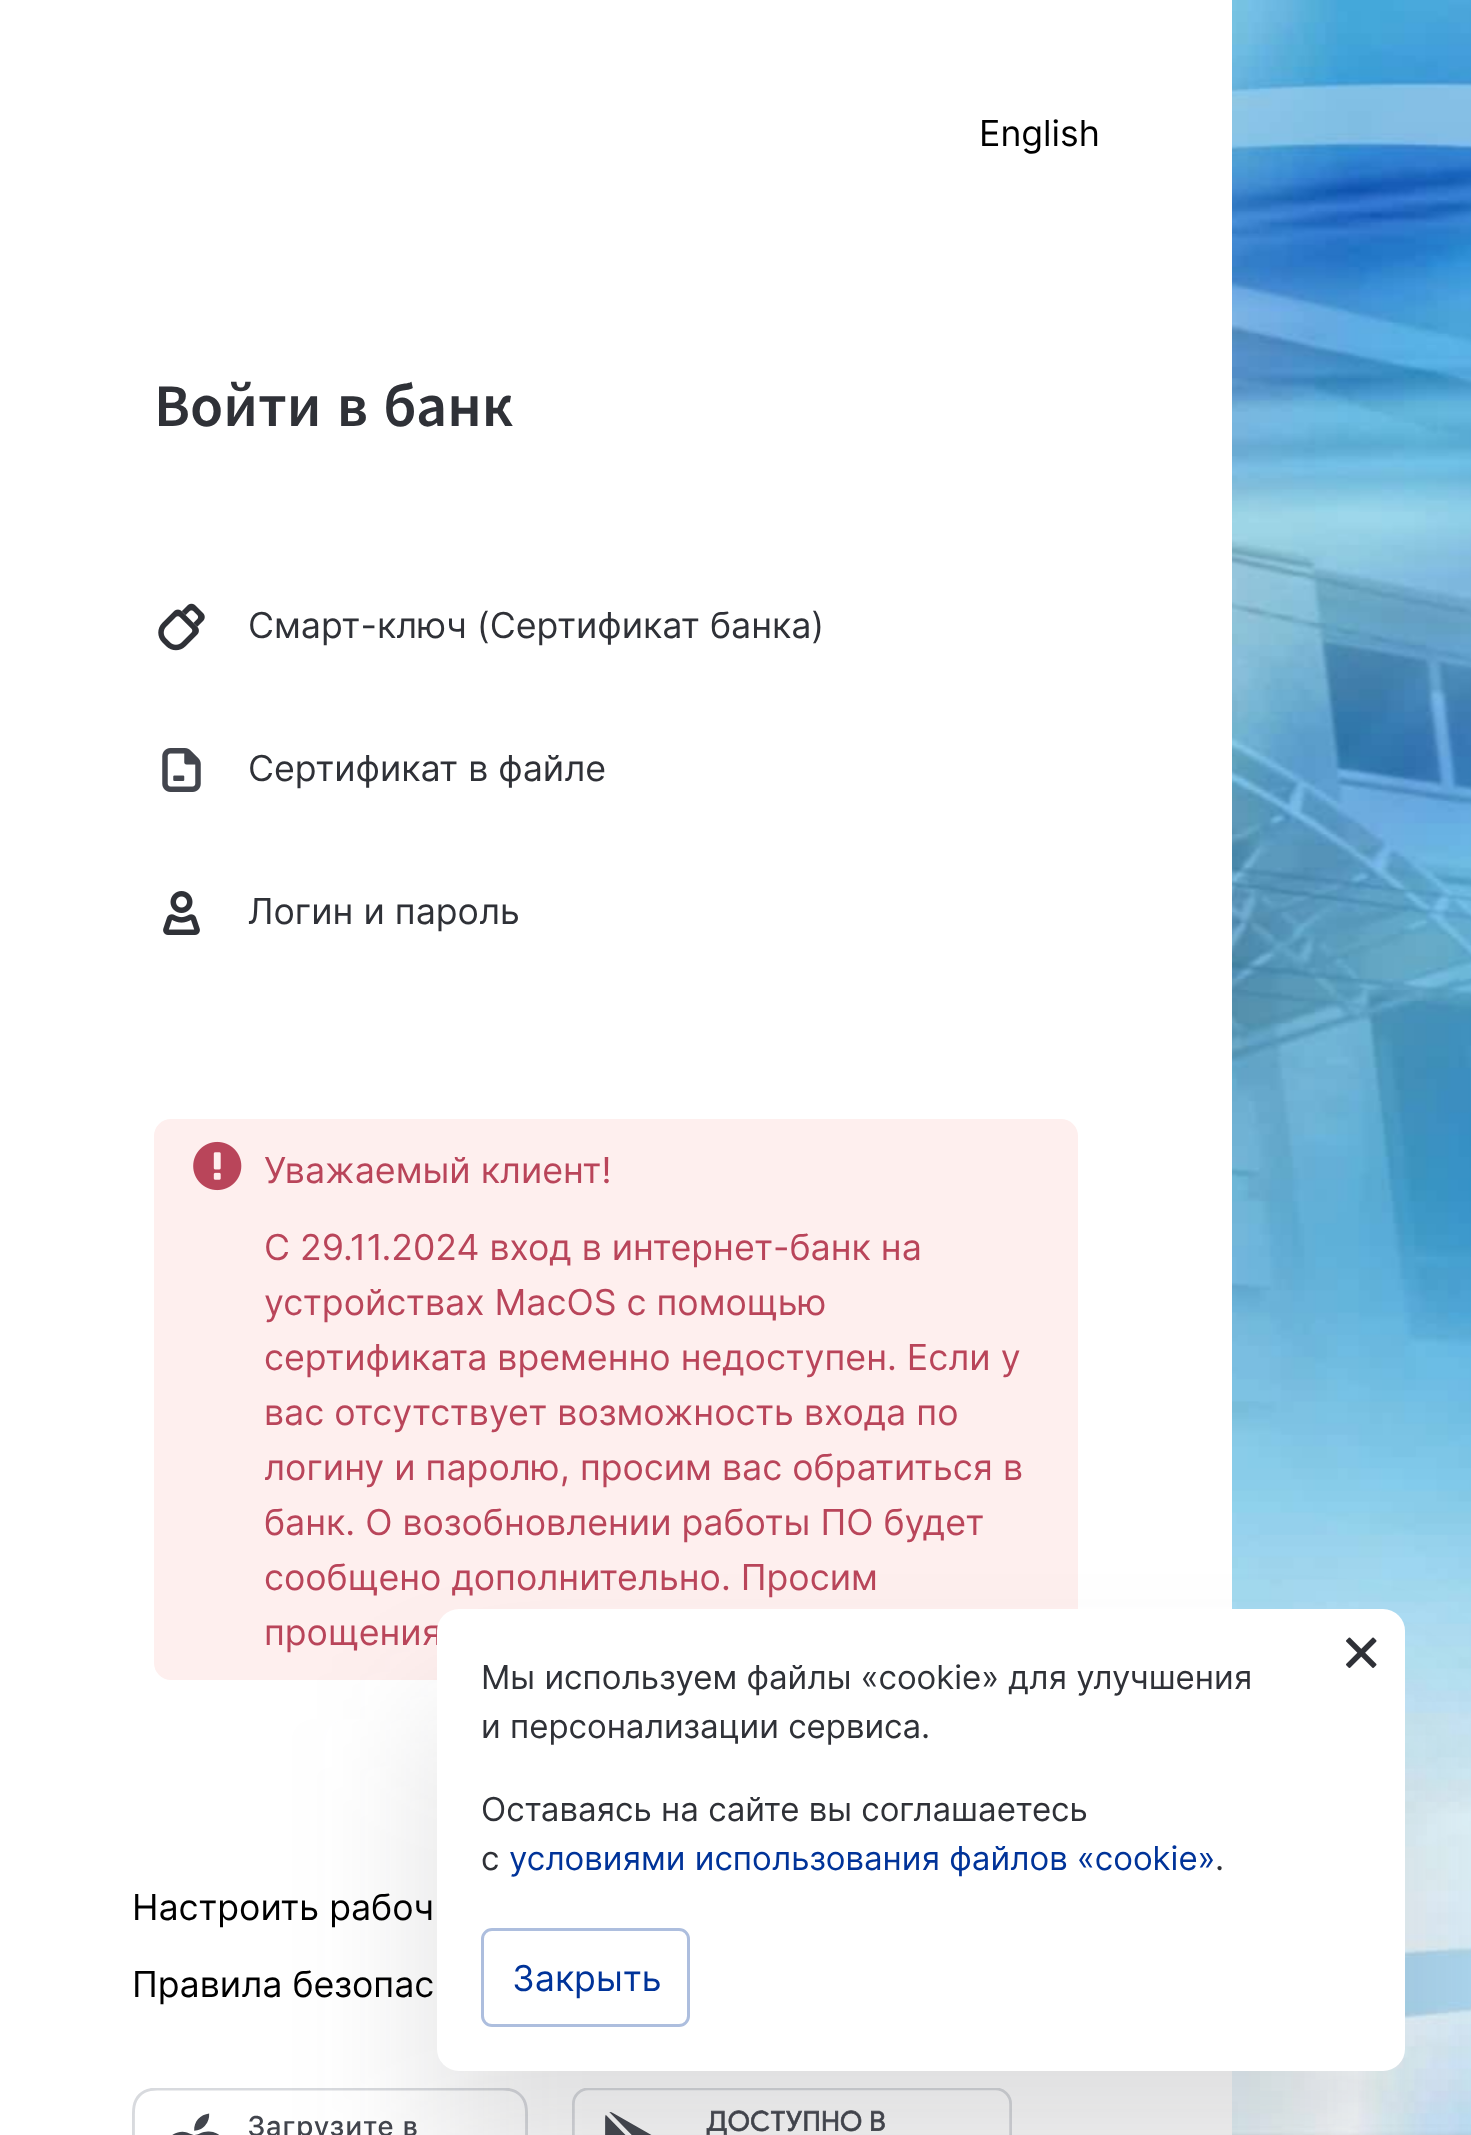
<svg xmlns="http://www.w3.org/2000/svg" width="1471" height="2135" viewBox="0 0 1471 2135">
  <rect width="100%" height="100%" fill="#fff"/>
  <image x="158" y="603" width="47" height="48" href="img/1.png"/>
  <image x="162" y="748" width="39" height="44" href="img/2.png"/>
  <image x="163" y="891" width="37" height="44" href="img/3.png"/>
  <rect x="154" y="1119" width="924" height="561" rx="17" fill="#feefee"/>
  <image x="193" y="1141" width="49" height="50" href="img/4.png"/>
  <image x="132" y="2088" width="396" height="47" href="img/6.png"/>
  <image x="572" y="2088" width="440" height="47" href="img/7.png"/>
  <image x="1232" y="0" width="239" height="2135" href="img/8.png"/>
  <rect x="437" y="1719" width="968" height="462" rx="22" fill="#3d404729" filter="blur(71.5px)"/>
  <text x="979" y="146" font-family="Inter" font-size="35.75" fill="#000">English</text>
  <text x="154" y="426" font-family="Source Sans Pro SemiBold" font-size="60.5" font-weight="600" fill="#2f3137">Войти в банк</text>
  <g font-family="Inter" font-size="35.75" fill="#2f3137">
    <text x="248" y="638">Смарт-ключ (Сертификат банка)</text>
    <text x="248" y="781">Сертификат в файле</text>
    <text x="248" y="924">Логин и пароль</text>
  </g>
  <g font-family="Inter" font-size="35.75" fill="#b9455a">
    <text x="264" y="1183">Уважаемый клиент!</text>
    <text x="264" y="1260">С 29.11.2024 вход в интернет-банк на</text>
    <text x="264" y="1315">устройствах MacOS с помощью</text>
    <text x="264" y="1370">сертификата временно недоступен. Если у</text>
    <text x="264" y="1425">вас отсутствует возможность входа по</text>
    <text x="264" y="1480">логину и паролю, просим вас обратиться в</text>
    <text x="264" y="1535">банк. О возобновлении работы ПО будет</text>
    <text x="264" y="1590">сообщено дополнительно. Просим</text>
    <text x="264" y="1645">прощения</text>
  </g>
  <g font-family="Inter" font-size="35.75" fill="#000">
    <text x="132" y="1920">Настроить рабоч</text>
    <text x="132" y="1997">Правила безопас</text>
  </g>
  <rect x="437" y="1609" width="968" height="462" rx="22" fill="#fff"/>
  <image x="1346" y="1637" width="31" height="31" href="img/5.png"/>
  <g font-family="Inter" font-size="33" fill="#2f3137">
    <text x="481" y="1689">Мы используем файлы «cookie» для улучшения</text>
    <text x="481" y="1738">и персонализации сервиса.</text>
    <text x="481" y="1821">Оставаясь на сайте вы соглашаетесь</text>
    <text x="481" y="1870">с</text>
  </g>
  <text x="509" y="1870" font-family="Inter" font-size="33" fill="#039">условиями использования файлов «cookie»</text>
  <text x="1215" y="1870" font-family="Inter" font-size="33" fill="#2f3137">.</text>
  <rect x="482.5" y="1929.5" width="206" height="96" rx="9.5" fill="none" stroke="#adbede" stroke-width="3"/>
  <text x="512" y="1991" font-family="Inter" font-size="35.75" fill="#039">Закрыть</text>
</svg>
